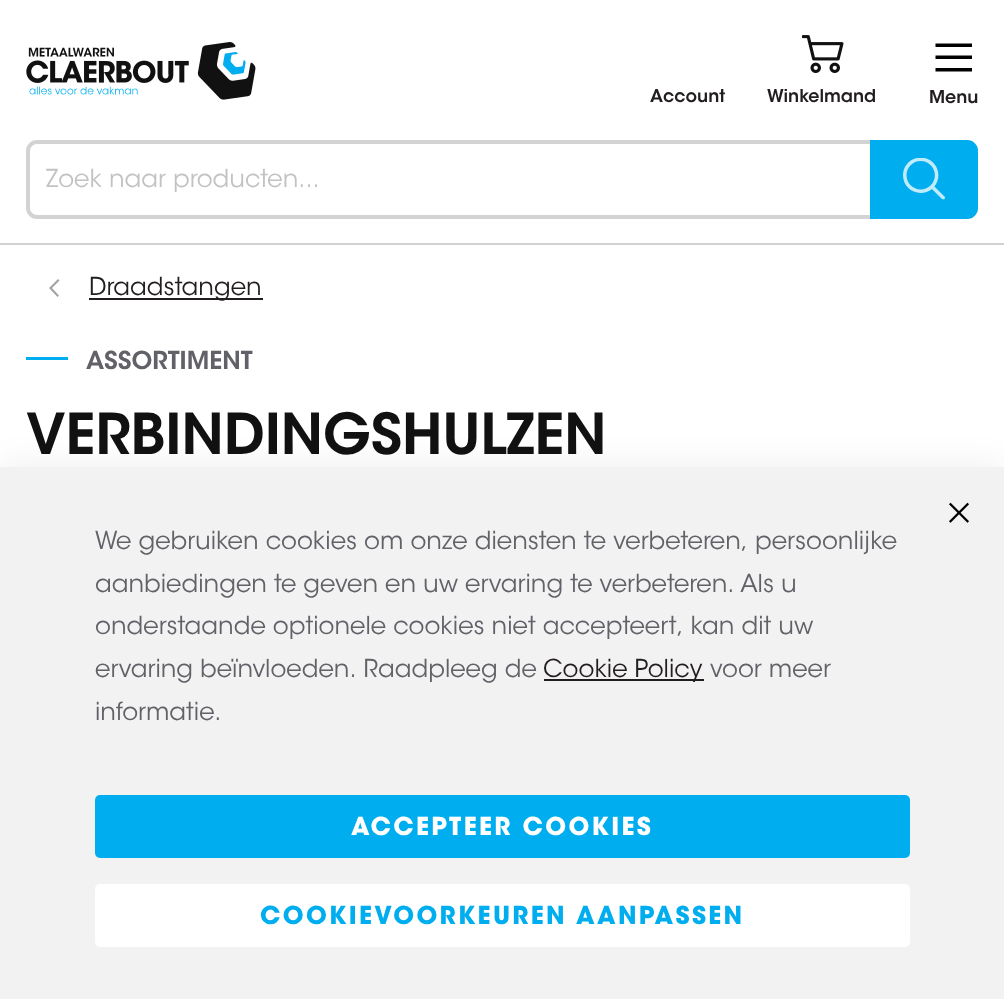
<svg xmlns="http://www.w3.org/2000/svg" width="1004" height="999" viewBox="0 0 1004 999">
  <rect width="100%" height="100%" fill="#fff"/>
  <path d="M0 243h1004v2H0z" fill="#d1d1d1"/>
  <image x="26" y="42" width="230" height="58" href="img/1.png"/>
  <image x="802" y="35" width="42" height="38" href="img/2.png"/>
  <path d="M935.5 43.5V47H972V43.5ZM935.5 59H972V55.5H935.5ZM935.5 71.5H972V68H935.5Z" fill="#000"/>
  <rect x="28" y="142" width="948" height="75" rx="9" fill="none" stroke="#d3d3d3" stroke-width="4"/>
  <path d="M871 141H967C972.5 141 977 145.5 977 151V208C977 213.5 972.5 218 967 218H871Z" fill="#00aeef" stroke="#00aeef" stroke-width="2"/>
  <image x="903" y="158" width="42" height="42" href="img/3.png"/>
  <path d="M49 288L57.5 297L59 295.5L52 288L59.5 280.5L58 279Z" fill="#a3a3a3"/>
  <path d="M89 298h174v2H89z" fill="#221e1f"/>
  <path d="M26 357h42v3H26z" fill="#00aeef"/>
  <path d="M0 464h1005v532H0z" fill="#0000000f" filter="blur(16px)"/>
  <path d="M0 467h1004v532H0z" fill="#f3f2f2"/>
  <image x="949" y="502" width="20" height="21" href="img/4.png"/>
  <path d="M544 679h160v2H544z" fill="#221e1f"/>
  <rect x="95" y="795" width="815" height="63" rx="5" fill="#00aeef"/>
  <rect x="95" y="884" width="815" height="63" rx="5" fill="#fff"/>
  <g font-family="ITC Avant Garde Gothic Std" font-size="17.5" font-weight="600" fill="#221e1f">
    <text x="650" y="102">Account</text>
    <text x="767" y="102">Winkelmand</text>
    <text x="929" y="103">Menu</text>
  </g>
  <text x="46" y="187" font-family="ITC Avant Garde Gothic Std" font-size="24.5" font-weight="300" fill="#c2c2c2">Zoek naar producten...</text>
  <text x="89" y="295" font-family="ITC Avant Garde Gothic Std" font-size="24.5" font-weight="300" fill="#221e1f">Draadstangen</text>
  <text x="86" y="369" font-family="ITC Avant Garde Gothic Std" font-size="24.5" font-weight="600" fill="#616168">ASSORTIMENT</text>
  <text x="26" y="454" font-family="ITC Avant Garde Gothic Std" font-size="56" font-weight="600" fill="#111">VERBINDINGSHULZEN</text>
  <g font-family="ITC Avant Garde Gothic Std" font-size="24.5" font-weight="300" fill="#616168">
    <text x="95" y="549">We gebruiken cookies om onze diensten te verbeteren, persoonlijke</text>
    <text x="95" y="592">aanbiedingen te geven en uw ervaring te verbeteren. Als u</text>
    <text x="95" y="634">onderstaande optionele cookies niet accepteert, kan dit uw</text>
    <text x="95" y="677">ervaring beïnvloeden. Raadpleeg de</text>
  </g>
  <text x="543" y="677" font-family="ITC Avant Garde Gothic Std" font-size="24.5" font-weight="300" fill="#221e1f">Cookie Policy</text>
  <g font-family="ITC Avant Garde Gothic Std" font-size="24.5" font-weight="300" fill="#616168">
    <text x="710" y="677">voor meer</text>
    <text x="95" y="720">informatie.</text>
  </g>
  <text x="351" y="835" font-family="ITC Avant Garde Gothic Std" font-size="24.5" font-weight="bold" letter-spacing="2.35" fill="#fff">ACCEPTEER COOKIES</text>
  <text x="260" y="924" font-family="ITC Avant Garde Gothic Std" font-size="24.5" font-weight="bold" letter-spacing="2.35" fill="#00aeef">COOKIEVOORKEUREN AANPASSEN</text>
</svg>
